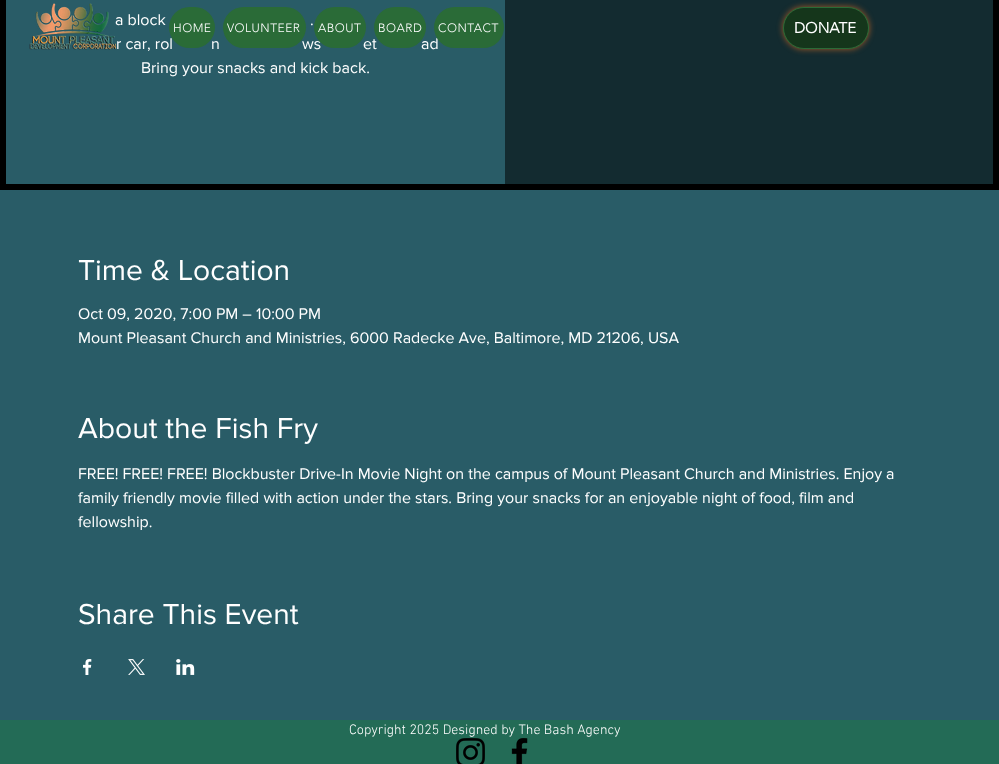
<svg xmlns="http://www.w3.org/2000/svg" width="999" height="764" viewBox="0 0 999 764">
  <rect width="100%" height="100%" fill="#236b56"/>
  <path d="M0 0h999v720H0z" fill="#295c67"/>
  <path d="M3 -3h993v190H3z" fill="none" stroke="#000" stroke-width="6"/>
  <path d="M505 0h488v184H505z" fill="#132b30"/>
  <image x="83" y="659" width="9" height="16" href="img/1.png"/>
  <image x="128" y="659" width="17" height="16" href="img/2.png"/>
  <image x="176" y="659" width="19" height="16" href="img/3.png"/>
  <rect x="783" y="7" width="86" height="42" rx="21" fill="#e57022b3" filter="blur(3px)"/>
  <rect x="783.5" y="7.5" width="85" height="41" rx="20.5" fill="#15361b" stroke="#2a6b37"/>
  <image x="456" y="738" width="29" height="26" href="img/5.png"/>
  <image x="511" y="738" width="17" height="26" href="img/6.png"/>
  <g font-family="'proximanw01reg'" font-size="16" fill="#fff">
    <text x="115" y="25">a block</text>
    <text x="310" y="25">.</text>
    <text x="116" y="49">r car, rol</text>
    <text x="211" y="49">n</text>
    <text x="302" y="49">ws</text>
    <text x="363" y="49">et</text>
    <text x="421" y="49">ad</text>
    <text x="141" y="73">Bring your snacks and kick back.</text>
  </g>
  <text x="78" y="280" font-family="'proximanw01reg'" font-size="30" fill="#fff">Time &amp; Location</text>
  <g font-family="'proximanw01reg'" font-size="16" fill="#fff">
    <text x="78" y="319">Oct 09, 2020, 7:00 PM – 10:00 PM</text>
    <text x="78" y="343">Mount Pleasant Church and Ministries, 6000 Radecke Ave, Baltimore, MD 21206, USA</text>
  </g>
  <text x="78" y="438" font-family="'proximanw01reg'" font-size="30" fill="#fff">About the Fish Fry</text>
  <g font-family="'proximanw01reg'" font-size="16" fill="#fff">
    <text x="78" y="479">FREE! FREE! FREE! Blockbuster Drive-In Movie Night on the campus of Mount Pleasant Church and Ministries. Enjoy a</text>
    <text x="78" y="503">family friendly movie filled with action under the stars. Bring your snacks for an enjoyable night of food, film and</text>
    <text x="78" y="527">fellowship.</text>
  </g>
  <text x="78" y="624" font-family="'proximanw01reg'" font-size="30" fill="#fff">Share This Event</text>
  <image x="29" y="3" width="87" height="47" href="img/4.png"/>
  <rect x="169" y="7" width="46" height="41" rx="20.5" fill="#2a6b37"/>
  <text x="173" y="32" font-family="'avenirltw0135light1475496'" font-size="12" font-weight="300" letter-spacing="0.5" fill="#fff">HOME</text>
  <rect x="223" y="7" width="83" height="41" rx="20.5" fill="#2a6b37"/>
  <text x="227" y="32" font-family="'avenirltw0135light1475496'" font-size="12" font-weight="300" letter-spacing="0.5" fill="#fff">VOLUNTEER</text>
  <rect x="314" y="7" width="52" height="41" rx="20.5" fill="#2a6b37"/>
  <text x="318" y="32" font-family="'avenirltw0135light1475496'" font-size="12" font-weight="300" letter-spacing="0.5" fill="#fff">ABOUT</text>
  <rect x="374" y="7" width="52" height="41" rx="20.5" fill="#2a6b37"/>
  <text x="378" y="32" font-family="'avenirltw0135light1475496'" font-size="12" font-weight="300" letter-spacing="0.5" fill="#fff">BOARD</text>
  <rect x="434" y="7" width="70" height="41" rx="20.5" fill="#2a6b37"/>
  <text x="438" y="32" font-family="'avenirltw0135light1475496'" font-size="12" font-weight="300" letter-spacing="0.5" fill="#fff">CONTACT</text>
  <text x="794" y="33" font-family="'avenirltw0135light1475496'" font-size="15" font-weight="bold" fill="#fff">DONATE</text>
  <text x="349" y="734" font-family="'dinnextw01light'" font-size="14" font-weight="300" fill="#fff">Copyright 2025 Designed by The Bash Agency</text>
</svg>
